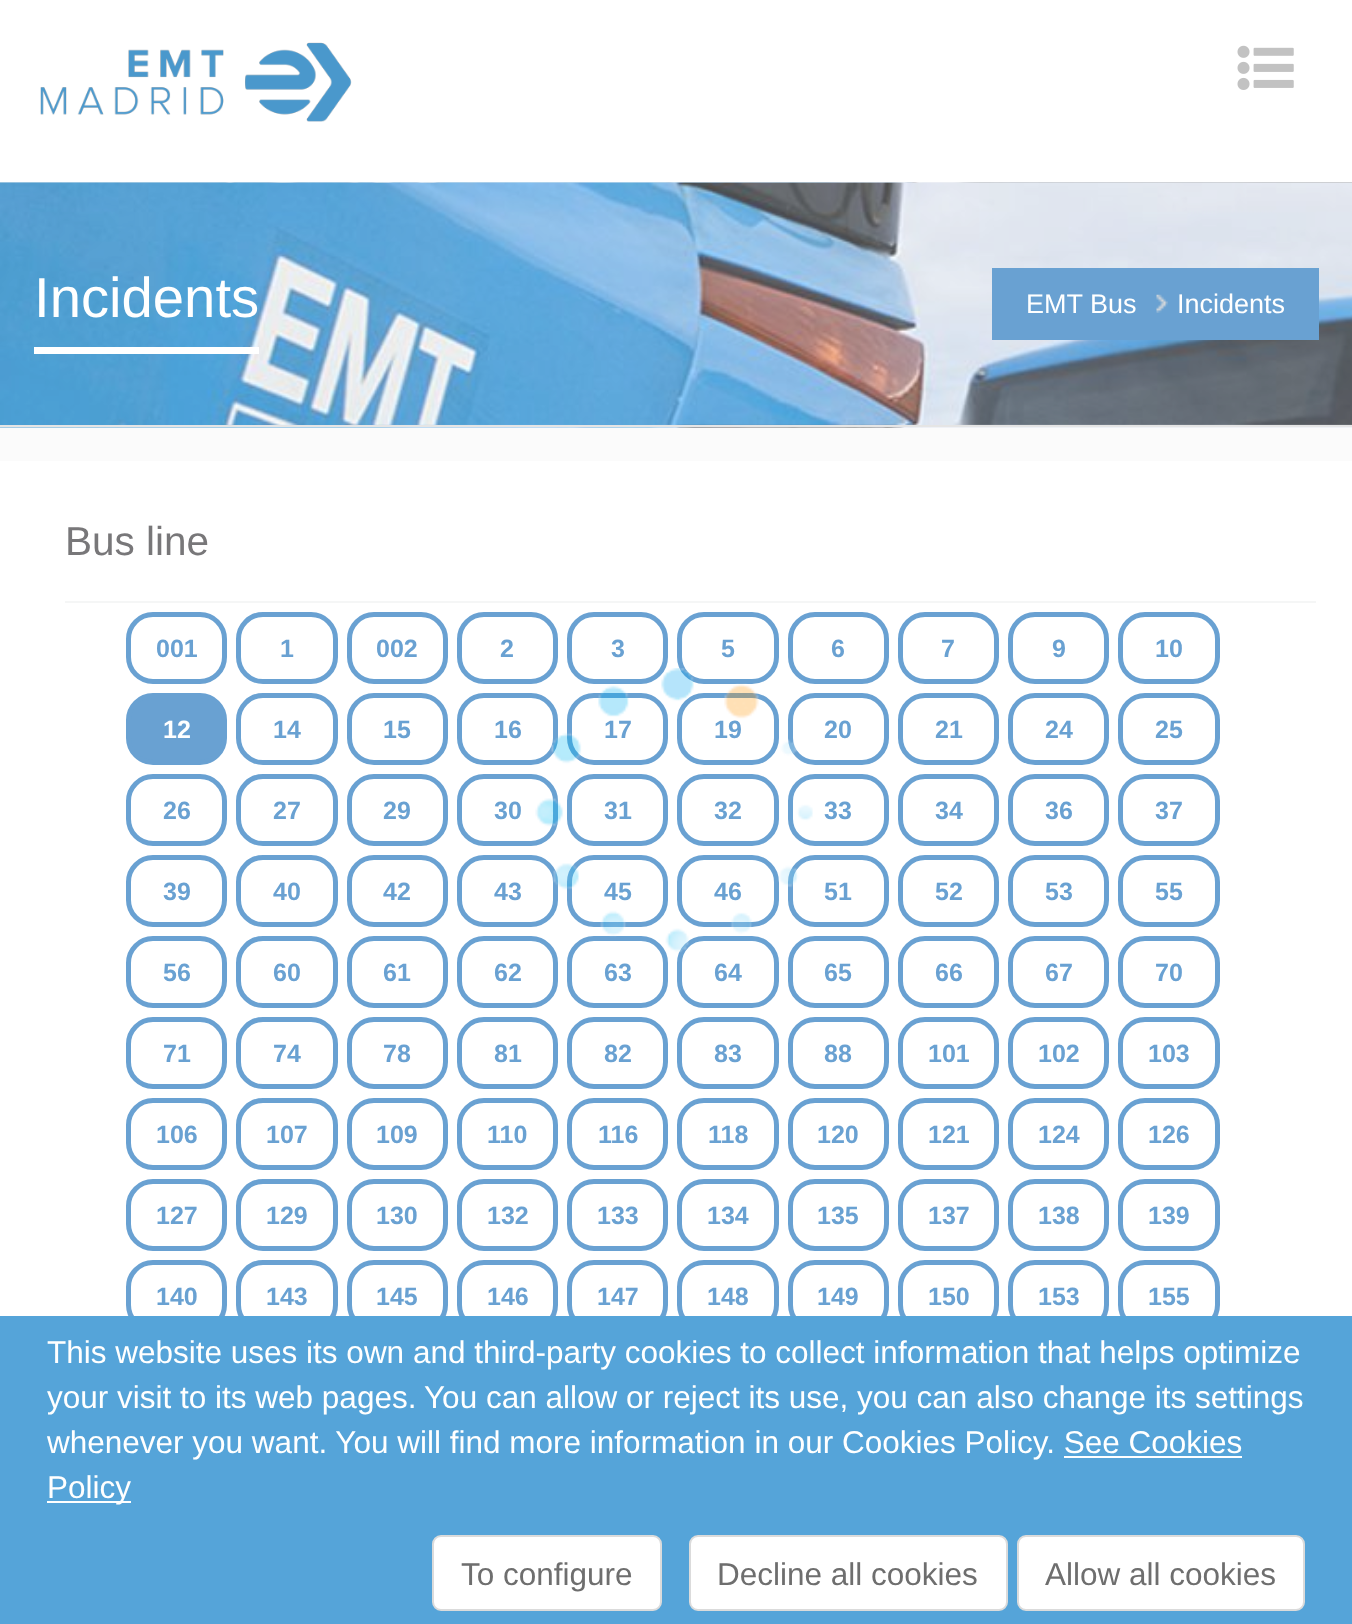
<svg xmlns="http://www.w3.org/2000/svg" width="1352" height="1624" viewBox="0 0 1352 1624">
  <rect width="100%" height="100%" fill="#fff"/>
  <image x="40" y="42" width="312" height="80" href="img/1.png"/>
  <image x="1237" y="45" width="57" height="45" href="img/2.png"/>
  <image x="0" y="182" width="1352" height="279" href="img/3.png"/>
  <image x="0" y="182" width="1352" height="246" href="img/4.png"/>
  <path d="M0 425h1352v2H0z" fill="#e5e5e5"/>
  <path d="M34 347h225v7H34z" fill="#fff"/>
  <path d="M992 268h327v72H992z" fill="#69a1d2"/>
  <image x="1156" y="294" width="12" height="19" href="img/5.png"/>
  <path d="M65 601h1251v2H65z" fill="#f5f6f6"/>
  <rect x="128.5" y="614.5" width="96" height="67" rx="24.5" fill="none" stroke="#69a1d2" stroke-width="5"/>
  <rect x="238.5" y="614.5" width="97" height="67" rx="24.5" fill="none" stroke="#69a1d2" stroke-width="5"/>
  <rect x="349.5" y="614.5" width="96" height="67" rx="24.5" fill="none" stroke="#69a1d2" stroke-width="5"/>
  <rect x="459.5" y="614.5" width="96" height="67" rx="24.5" fill="none" stroke="#69a1d2" stroke-width="5"/>
  <rect x="569.5" y="614.5" width="96" height="67" rx="24.5" fill="none" stroke="#69a1d2" stroke-width="5"/>
  <rect x="679.5" y="614.5" width="97" height="67" rx="24.5" fill="none" stroke="#69a1d2" stroke-width="5"/>
  <rect x="790.5" y="614.5" width="96" height="67" rx="24.5" fill="none" stroke="#69a1d2" stroke-width="5"/>
  <rect x="900.5" y="614.5" width="96" height="67" rx="24.5" fill="none" stroke="#69a1d2" stroke-width="5"/>
  <rect x="1010.5" y="614.5" width="96" height="67" rx="24.5" fill="none" stroke="#69a1d2" stroke-width="5"/>
  <rect x="1120.5" y="614.5" width="97" height="67" rx="24.5" fill="none" stroke="#69a1d2" stroke-width="5"/>
  <rect x="128.5" y="695.5" width="96" height="67" rx="24.5" fill="#69a1d2" stroke="#69a1d2" stroke-width="5"/>
  <rect x="238.5" y="695.5" width="97" height="67" rx="24.5" fill="none" stroke="#69a1d2" stroke-width="5"/>
  <rect x="349.5" y="695.5" width="96" height="67" rx="24.5" fill="none" stroke="#69a1d2" stroke-width="5"/>
  <rect x="459.5" y="695.5" width="96" height="67" rx="24.5" fill="none" stroke="#69a1d2" stroke-width="5"/>
  <rect x="569.5" y="695.5" width="96" height="67" rx="24.5" fill="none" stroke="#69a1d2" stroke-width="5"/>
  <rect x="679.5" y="695.5" width="97" height="67" rx="24.5" fill="none" stroke="#69a1d2" stroke-width="5"/>
  <rect x="790.5" y="695.5" width="96" height="67" rx="24.5" fill="none" stroke="#69a1d2" stroke-width="5"/>
  <rect x="900.5" y="695.5" width="96" height="67" rx="24.5" fill="none" stroke="#69a1d2" stroke-width="5"/>
  <rect x="1010.5" y="695.5" width="96" height="67" rx="24.5" fill="none" stroke="#69a1d2" stroke-width="5"/>
  <rect x="1120.5" y="695.5" width="97" height="67" rx="24.5" fill="none" stroke="#69a1d2" stroke-width="5"/>
  <rect x="128.5" y="776.5" width="96" height="67" rx="24.5" fill="none" stroke="#69a1d2" stroke-width="5"/>
  <rect x="238.5" y="776.5" width="97" height="67" rx="24.5" fill="none" stroke="#69a1d2" stroke-width="5"/>
  <rect x="349.5" y="776.5" width="96" height="67" rx="24.5" fill="none" stroke="#69a1d2" stroke-width="5"/>
  <rect x="459.5" y="776.5" width="96" height="67" rx="24.5" fill="none" stroke="#69a1d2" stroke-width="5"/>
  <rect x="569.5" y="776.5" width="96" height="67" rx="24.5" fill="none" stroke="#69a1d2" stroke-width="5"/>
  <rect x="679.5" y="776.5" width="97" height="67" rx="24.5" fill="none" stroke="#69a1d2" stroke-width="5"/>
  <rect x="790.5" y="776.5" width="96" height="67" rx="24.5" fill="none" stroke="#69a1d2" stroke-width="5"/>
  <rect x="900.5" y="776.5" width="96" height="67" rx="24.5" fill="none" stroke="#69a1d2" stroke-width="5"/>
  <rect x="1010.5" y="776.5" width="96" height="67" rx="24.5" fill="none" stroke="#69a1d2" stroke-width="5"/>
  <rect x="1120.5" y="776.5" width="97" height="67" rx="24.5" fill="none" stroke="#69a1d2" stroke-width="5"/>
  <rect x="128.5" y="857.5" width="96" height="67" rx="24.5" fill="none" stroke="#69a1d2" stroke-width="5"/>
  <rect x="238.5" y="857.5" width="97" height="67" rx="24.5" fill="none" stroke="#69a1d2" stroke-width="5"/>
  <rect x="349.5" y="857.5" width="96" height="67" rx="24.5" fill="none" stroke="#69a1d2" stroke-width="5"/>
  <rect x="459.5" y="857.5" width="96" height="67" rx="24.5" fill="none" stroke="#69a1d2" stroke-width="5"/>
  <rect x="569.5" y="857.5" width="96" height="67" rx="24.5" fill="none" stroke="#69a1d2" stroke-width="5"/>
  <rect x="679.5" y="857.5" width="97" height="67" rx="24.5" fill="none" stroke="#69a1d2" stroke-width="5"/>
  <rect x="790.5" y="857.5" width="96" height="67" rx="24.5" fill="none" stroke="#69a1d2" stroke-width="5"/>
  <rect x="900.5" y="857.5" width="96" height="67" rx="24.5" fill="none" stroke="#69a1d2" stroke-width="5"/>
  <rect x="1010.5" y="857.5" width="96" height="67" rx="24.5" fill="none" stroke="#69a1d2" stroke-width="5"/>
  <rect x="1120.5" y="857.5" width="97" height="67" rx="24.5" fill="none" stroke="#69a1d2" stroke-width="5"/>
  <rect x="128.5" y="938.5" width="96" height="67" rx="24.5" fill="none" stroke="#69a1d2" stroke-width="5"/>
  <rect x="238.5" y="938.5" width="97" height="67" rx="24.5" fill="none" stroke="#69a1d2" stroke-width="5"/>
  <rect x="349.5" y="938.5" width="96" height="67" rx="24.5" fill="none" stroke="#69a1d2" stroke-width="5"/>
  <rect x="459.5" y="938.5" width="96" height="67" rx="24.5" fill="none" stroke="#69a1d2" stroke-width="5"/>
  <rect x="569.5" y="938.5" width="96" height="67" rx="24.5" fill="none" stroke="#69a1d2" stroke-width="5"/>
  <rect x="679.5" y="938.5" width="97" height="67" rx="24.5" fill="none" stroke="#69a1d2" stroke-width="5"/>
  <rect x="790.5" y="938.5" width="96" height="67" rx="24.5" fill="none" stroke="#69a1d2" stroke-width="5"/>
  <rect x="900.5" y="938.5" width="96" height="67" rx="24.5" fill="none" stroke="#69a1d2" stroke-width="5"/>
  <rect x="1010.5" y="938.5" width="96" height="67" rx="24.5" fill="none" stroke="#69a1d2" stroke-width="5"/>
  <rect x="1120.5" y="938.5" width="97" height="67" rx="24.5" fill="none" stroke="#69a1d2" stroke-width="5"/>
  <rect x="128.5" y="1019.5" width="96" height="67" rx="24.5" fill="none" stroke="#69a1d2" stroke-width="5"/>
  <rect x="238.5" y="1019.5" width="97" height="67" rx="24.5" fill="none" stroke="#69a1d2" stroke-width="5"/>
  <rect x="349.5" y="1019.5" width="96" height="67" rx="24.5" fill="none" stroke="#69a1d2" stroke-width="5"/>
  <rect x="459.5" y="1019.5" width="96" height="67" rx="24.5" fill="none" stroke="#69a1d2" stroke-width="5"/>
  <rect x="569.5" y="1019.5" width="96" height="67" rx="24.5" fill="none" stroke="#69a1d2" stroke-width="5"/>
  <rect x="679.5" y="1019.5" width="97" height="67" rx="24.5" fill="none" stroke="#69a1d2" stroke-width="5"/>
  <rect x="790.5" y="1019.5" width="96" height="67" rx="24.5" fill="none" stroke="#69a1d2" stroke-width="5"/>
  <rect x="900.5" y="1019.5" width="96" height="67" rx="24.5" fill="none" stroke="#69a1d2" stroke-width="5"/>
  <rect x="1010.5" y="1019.5" width="96" height="67" rx="24.5" fill="none" stroke="#69a1d2" stroke-width="5"/>
  <rect x="1120.5" y="1019.5" width="97" height="67" rx="24.5" fill="none" stroke="#69a1d2" stroke-width="5"/>
  <rect x="128.5" y="1100.5" width="96" height="67" rx="24.5" fill="none" stroke="#69a1d2" stroke-width="5"/>
  <rect x="238.5" y="1100.5" width="97" height="67" rx="24.5" fill="none" stroke="#69a1d2" stroke-width="5"/>
  <rect x="349.5" y="1100.5" width="96" height="67" rx="24.5" fill="none" stroke="#69a1d2" stroke-width="5"/>
  <rect x="459.5" y="1100.5" width="96" height="67" rx="24.5" fill="none" stroke="#69a1d2" stroke-width="5"/>
  <rect x="569.5" y="1100.5" width="96" height="67" rx="24.5" fill="none" stroke="#69a1d2" stroke-width="5"/>
  <rect x="679.5" y="1100.5" width="97" height="67" rx="24.5" fill="none" stroke="#69a1d2" stroke-width="5"/>
  <rect x="790.5" y="1100.5" width="96" height="67" rx="24.5" fill="none" stroke="#69a1d2" stroke-width="5"/>
  <rect x="900.5" y="1100.5" width="96" height="67" rx="24.5" fill="none" stroke="#69a1d2" stroke-width="5"/>
  <rect x="1010.5" y="1100.5" width="96" height="67" rx="24.5" fill="none" stroke="#69a1d2" stroke-width="5"/>
  <rect x="1120.5" y="1100.5" width="97" height="67" rx="24.5" fill="none" stroke="#69a1d2" stroke-width="5"/>
  <rect x="128.5" y="1181.5" width="96" height="67" rx="24.5" fill="none" stroke="#69a1d2" stroke-width="5"/>
  <rect x="238.5" y="1181.5" width="97" height="67" rx="24.5" fill="none" stroke="#69a1d2" stroke-width="5"/>
  <rect x="349.5" y="1181.5" width="96" height="67" rx="24.5" fill="none" stroke="#69a1d2" stroke-width="5"/>
  <rect x="459.5" y="1181.5" width="96" height="67" rx="24.5" fill="none" stroke="#69a1d2" stroke-width="5"/>
  <rect x="569.5" y="1181.5" width="96" height="67" rx="24.5" fill="none" stroke="#69a1d2" stroke-width="5"/>
  <rect x="679.5" y="1181.5" width="97" height="67" rx="24.5" fill="none" stroke="#69a1d2" stroke-width="5"/>
  <rect x="790.5" y="1181.5" width="96" height="67" rx="24.5" fill="none" stroke="#69a1d2" stroke-width="5"/>
  <rect x="900.5" y="1181.5" width="96" height="67" rx="24.5" fill="none" stroke="#69a1d2" stroke-width="5"/>
  <rect x="1010.5" y="1181.5" width="96" height="67" rx="24.5" fill="none" stroke="#69a1d2" stroke-width="5"/>
  <rect x="1120.5" y="1181.5" width="97" height="67" rx="24.5" fill="none" stroke="#69a1d2" stroke-width="5"/>
  <rect x="128.5" y="1262.5" width="96" height="67" rx="24.5" fill="none" stroke="#69a1d2" stroke-width="5"/>
  <rect x="238.5" y="1262.5" width="97" height="67" rx="24.5" fill="none" stroke="#69a1d2" stroke-width="5"/>
  <rect x="349.5" y="1262.5" width="96" height="67" rx="24.5" fill="none" stroke="#69a1d2" stroke-width="5"/>
  <rect x="459.5" y="1262.5" width="96" height="67" rx="24.5" fill="none" stroke="#69a1d2" stroke-width="5"/>
  <rect x="569.5" y="1262.5" width="96" height="67" rx="24.5" fill="none" stroke="#69a1d2" stroke-width="5"/>
  <rect x="679.5" y="1262.5" width="97" height="67" rx="24.5" fill="none" stroke="#69a1d2" stroke-width="5"/>
  <rect x="790.5" y="1262.5" width="96" height="67" rx="24.5" fill="none" stroke="#69a1d2" stroke-width="5"/>
  <rect x="900.5" y="1262.5" width="96" height="67" rx="24.5" fill="none" stroke="#69a1d2" stroke-width="5"/>
  <rect x="1010.5" y="1262.5" width="96" height="67" rx="24.5" fill="none" stroke="#69a1d2" stroke-width="5"/>
  <rect x="1120.5" y="1262.5" width="97" height="67" rx="24.5" fill="none" stroke="#69a1d2" stroke-width="5"/>
  <path d="M0 1316h1352v308H0z" fill="#55a4d9"/>
  <path d="M1064 1456h178v2H1064z" fill="#fff"/>
  <path d="M47 1501h84v2H47z" fill="#fff"/>
  <rect x="690" y="1536" width="317" height="74" rx="8" fill="#fff" stroke="#dbdbdb" stroke-width="2"/>
  <rect x="1018" y="1536" width="286" height="74" rx="8" fill="#fff" stroke="#dbdbdb" stroke-width="2"/>
  <rect x="433" y="1536" width="228" height="74" rx="8" fill="#fff" stroke="#dbdbdb" stroke-width="2"/>
  <text x="34" y="317" font-family="Liberation Sans" font-size="56.25" fill="#fff">Incidents</text>
  <g font-family="Liberation Sans" font-size="27" fill="#fff">
    <text x="1026" y="313">EMT Bus</text>
    <text x="1177" y="313">Incidents</text>
  </g>
  <text x="65" y="555" font-family="Liberation Sans" font-size="40.5" fill="#787779">Bus line</text>
  <g font-family="Liberation Sans" font-size="25" font-weight="bold" fill="#69a1d2">
    <text x="156" y="657">001</text>
    <text x="280" y="657">1</text>
    <text x="376" y="657">002</text>
    <text x="500" y="657">2</text>
    <text x="611" y="657">3</text>
    <text x="721" y="657">5</text>
    <text x="831" y="657">6</text>
    <text x="941" y="657">7</text>
    <text x="1052" y="657">9</text>
    <text x="1155" y="657">10</text>
  </g>
  <text x="163" y="738" font-family="Liberation Sans" font-size="25" font-weight="bold" fill="#fff">12</text>
  <g font-family="Liberation Sans" font-size="25" font-weight="bold" fill="#69a1d2">
    <text x="273" y="738">14</text>
    <text x="383" y="738">15</text>
    <text x="494" y="738">16</text>
    <text x="604" y="738">17</text>
    <text x="714" y="738">19</text>
    <text x="824" y="738">20</text>
    <text x="935" y="738">21</text>
    <text x="1045" y="738">24</text>
    <text x="1155" y="738">25</text>
    <text x="163" y="819">26</text>
    <text x="273" y="819">27</text>
    <text x="383" y="819">29</text>
    <text x="494" y="819">30</text>
    <text x="604" y="819">31</text>
    <text x="714" y="819">32</text>
    <text x="824" y="819">33</text>
    <text x="935" y="819">34</text>
    <text x="1045" y="819">36</text>
    <text x="1155" y="819">37</text>
    <text x="163" y="900">39</text>
    <text x="273" y="900">40</text>
    <text x="383" y="900">42</text>
    <text x="494" y="900">43</text>
    <text x="604" y="900">45</text>
    <text x="714" y="900">46</text>
    <text x="824" y="900">51</text>
    <text x="935" y="900">52</text>
    <text x="1045" y="900">53</text>
    <text x="1155" y="900">55</text>
    <text x="163" y="981">56</text>
    <text x="273" y="981">60</text>
    <text x="383" y="981">61</text>
    <text x="494" y="981">62</text>
    <text x="604" y="981">63</text>
    <text x="714" y="981">64</text>
    <text x="824" y="981">65</text>
    <text x="935" y="981">66</text>
    <text x="1045" y="981">67</text>
    <text x="1155" y="981">70</text>
    <text x="163" y="1062">71</text>
    <text x="273" y="1062">74</text>
    <text x="383" y="1062">78</text>
    <text x="494" y="1062">81</text>
    <text x="604" y="1062">82</text>
    <text x="714" y="1062">83</text>
    <text x="824" y="1062">88</text>
    <text x="928" y="1062">101</text>
    <text x="1038" y="1062">102</text>
    <text x="1148" y="1062">103</text>
    <text x="156" y="1143">106</text>
    <text x="266" y="1143">107</text>
    <text x="376" y="1143">109</text>
    <text x="487" y="1143">110</text>
    <text x="598" y="1143">116</text>
    <text x="708" y="1143">118</text>
    <text x="817" y="1143">120</text>
    <text x="928" y="1143">121</text>
    <text x="1038" y="1143">124</text>
    <text x="1148" y="1143">126</text>
    <text x="156" y="1224">127</text>
    <text x="266" y="1224">129</text>
    <text x="376" y="1224">130</text>
    <text x="487" y="1224">132</text>
    <text x="597" y="1224">133</text>
    <text x="707" y="1224">134</text>
    <text x="817" y="1224">135</text>
    <text x="928" y="1224">137</text>
    <text x="1038" y="1224">138</text>
    <text x="1148" y="1224">139</text>
    <text x="156" y="1305">140</text>
    <text x="266" y="1305">143</text>
    <text x="376" y="1305">145</text>
    <text x="487" y="1305">146</text>
    <text x="597" y="1305">147</text>
    <text x="707" y="1305">148</text>
    <text x="817" y="1305">149</text>
    <text x="928" y="1305">150</text>
    <text x="1038" y="1305">153</text>
    <text x="1148" y="1305">155</text>
  </g>
  <g font-family="Liberation Sans" font-size="31.5" fill="#fff">
    <text x="47" y="1363">This website uses its own and third-party cookies to collect information that helps optimize</text>
    <text x="47" y="1408">your visit to its web pages.</text>
    <text x="424" y="1408">You can allow or reject its use, you can also change its settings</text>
    <text x="47" y="1453">whenever you want. You will find more information in our Cookies Policy. See Cookies</text>
    <text x="47" y="1498">Policy</text>
  </g>
  <g font-family="Liberation Sans" font-size="31.5" fill="#6e6e6e">
    <text x="717" y="1585">Decline all cookies</text>
    <text x="1045" y="1585">Allow all cookies</text>
    <text x="461" y="1585">To configure</text>
  </g>
  <image x="535" y="668" width="278" height="285" href="img/6.png"/>
</svg>
